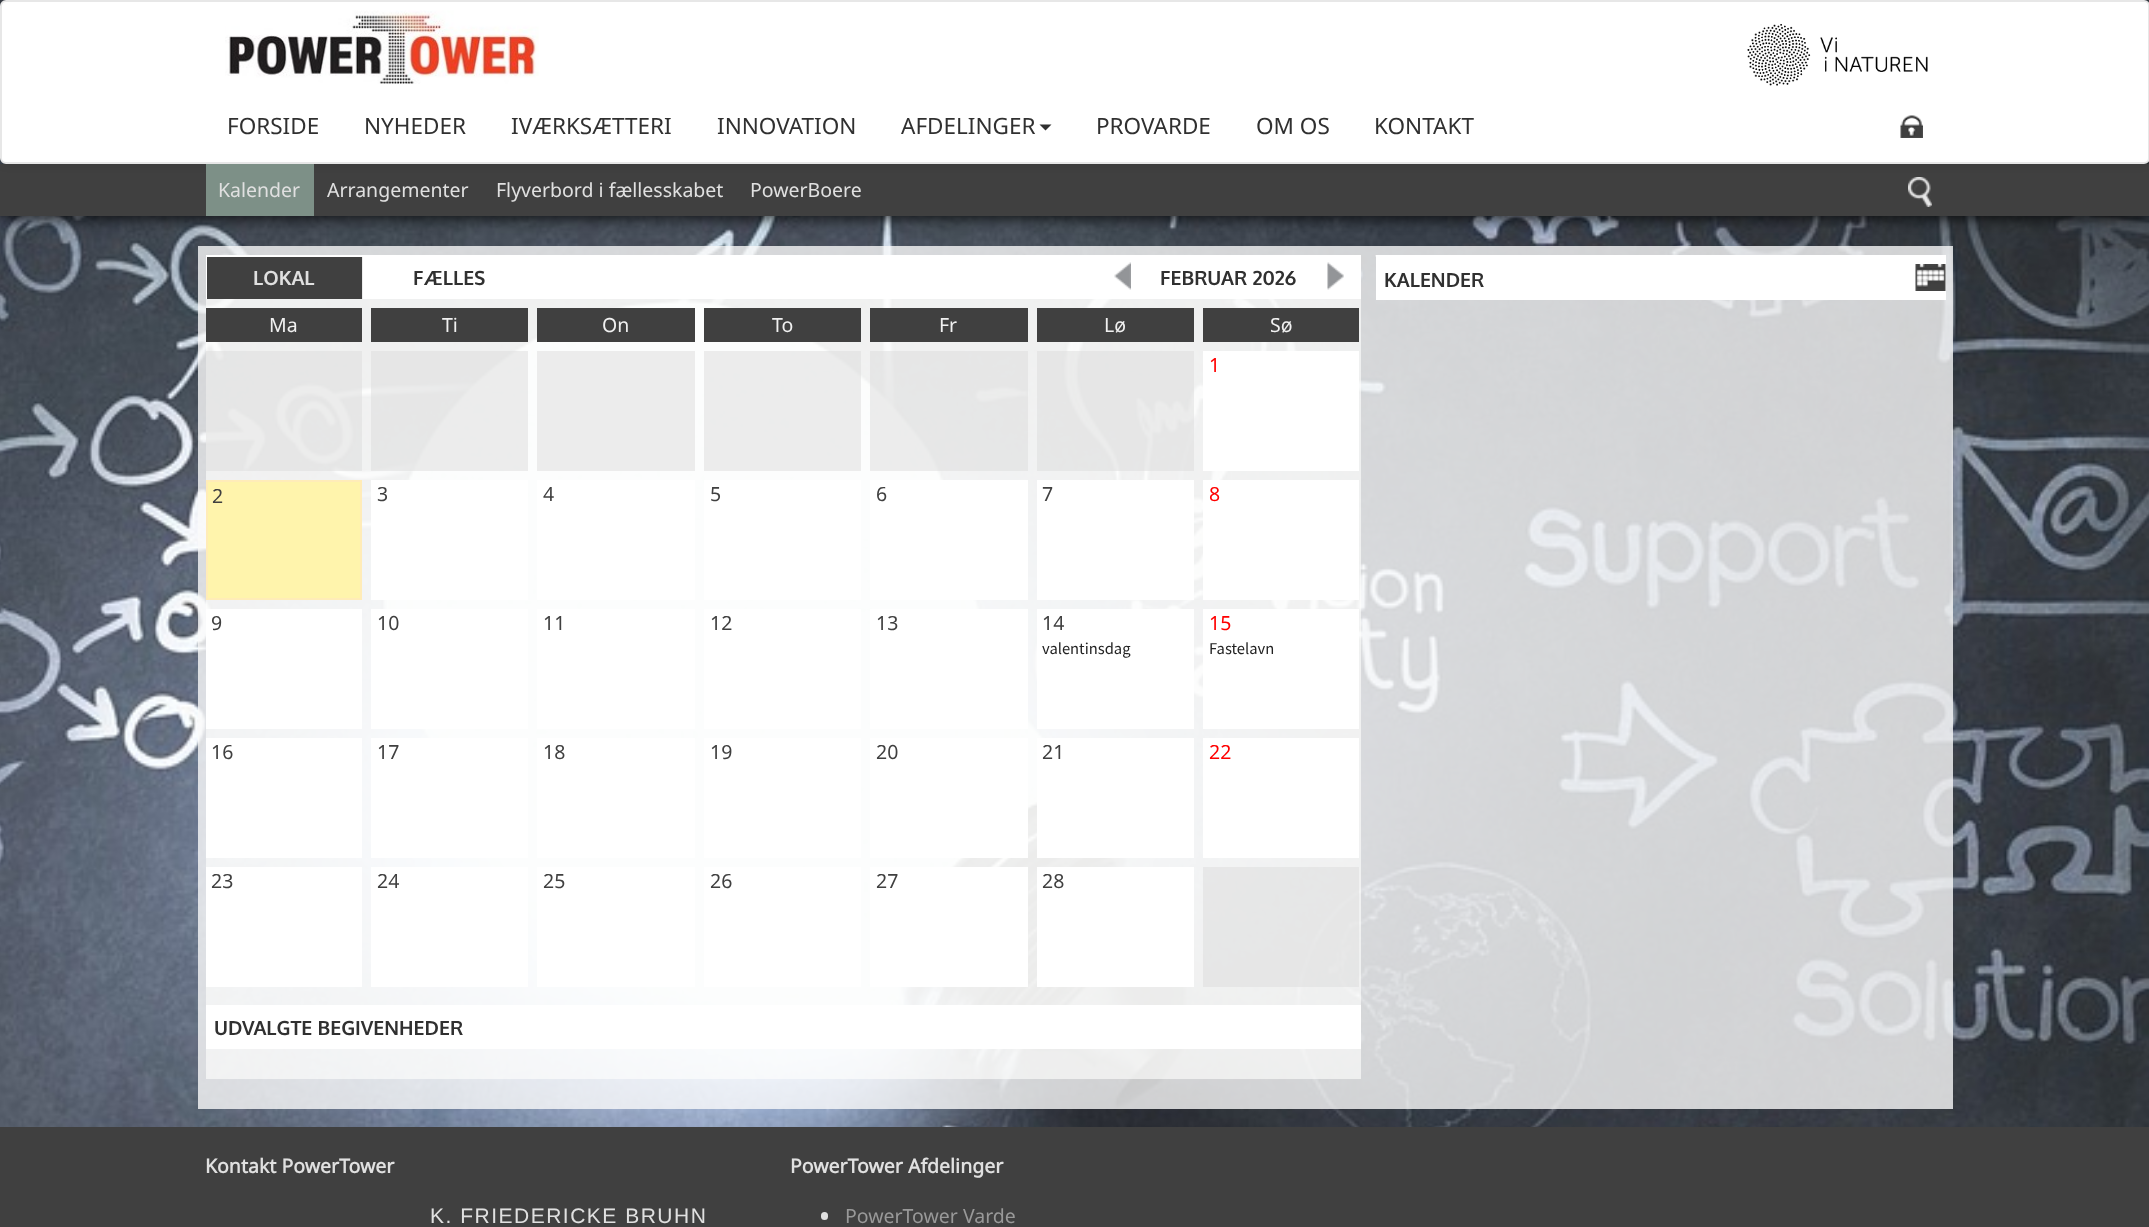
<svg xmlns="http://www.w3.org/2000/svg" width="2149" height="1227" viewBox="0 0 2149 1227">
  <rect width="100%" height="100%" fill="#fff"/>
  <image x="0" y="0" width="2149" height="1127" href="img/1.png"/>
  <path d="M3 173h2144v46H3z" fill="#000000bf" filter="blur(7px)"/>
  <path d="M0 164h2149v52H0z" fill="#404040"/>
  <rect y="2" width="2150" height="163" rx="6" fill="#00000012" filter="blur(4px)"/>
  <rect x="1" y="1" width="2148" height="162" rx="5" fill="#fff" stroke="#e7e7e7" stroke-width="2"/>
  <image x="225" y="10" width="314" height="74" href="img/2.png"/>
  <image x="1747" y="24" width="181" height="62" href="img/3.png"/>
  <path d="M1039.5 124.5H1051.5L1045.5 130.5Z" fill="#303030"/>
  <image x="1900" y="115" width="23" height="23" href="img/4.png"/>
  <path d="M206 164h108v52H206z" fill="#7d9087"/>
  <image x="1908" y="177" width="24" height="30" href="img/5.png"/>
  <path d="M198 246h1755v863H198z" fill="#fafafacc"/>
  <path d="M206 299h1155v780H206z" fill="#fffffe9e"/>
  <path d="M206 255h1155v44H206z" fill="#fff"/>
  <path d="M207 257h156v42H207z" fill="#404040"/>
  <path d="M362 257h1v42H362z" fill="#ffffffe6"/>
  <image x="1114" y="262" width="17" height="28" href="img/6.png"/>
  <image x="1327" y="262" width="17" height="28" href="img/7.png"/>
  <path d="M206 308h156v34H206z" fill="#404040"/>
  <path d="M371 308h157v34H371z" fill="#404040"/>
  <path d="M537 308h158v34H537z" fill="#404040"/>
  <path d="M704 308h157v34H704z" fill="#404040"/>
  <path d="M870 308h158v34H870z" fill="#404040"/>
  <path d="M1037 308h157v34H1037z" fill="#404040"/>
  <path d="M1203 308h156v34H1203z" fill="#404040"/>
  <path d="M206 351h156v120H206z" fill="#dcdcdc80"/>
  <path d="M371 351h157v120H371z" fill="#dcdcdc80"/>
  <path d="M537 351h158v120H537z" fill="#ececec"/>
  <path d="M704 351h157v120H704z" fill="#dcdcdc80"/>
  <path d="M870 351h158v120H870z" fill="#dcdcdc80"/>
  <path d="M1037 351h157v120H1037z" fill="#dcdcdc80"/>
  <path d="M1203 351h156v120H1203z" fill="#fff"/>
  <path d="M207 481h154v118H207z" fill="#fff4ac" stroke="#ffecb8" stroke-width="2"/>
  <path d="M371 480h157v120H371z" fill="#fff"/>
  <path d="M537 480h158v120H537z" fill="#fff"/>
  <path d="M704 480h157v120H704z" fill="#fff"/>
  <path d="M870 480h158v120H870z" fill="#fff"/>
  <path d="M1037 480h157v120H1037z" fill="#fff"/>
  <path d="M1203 480h156v120H1203z" fill="#fff"/>
  <path d="M206 609h156v120H206z" fill="#fff"/>
  <path d="M371 609h157v120H371z" fill="#fff"/>
  <path d="M537 609h158v120H537z" fill="#fff"/>
  <path d="M704 609h157v120H704z" fill="#fff"/>
  <path d="M870 609h158v120H870z" fill="#fff"/>
  <path d="M1037 609h157v120H1037z" fill="#fff"/>
  <path d="M1203 609h156v120H1203z" fill="#fff"/>
  <path d="M206 738h156v120H206z" fill="#fff"/>
  <path d="M371 738h157v120H371z" fill="#fff"/>
  <path d="M537 738h158v120H537z" fill="#fff"/>
  <path d="M704 738h157v120H704z" fill="#fff"/>
  <path d="M870 738h158v120H870z" fill="#fff"/>
  <path d="M1037 738h157v120H1037z" fill="#fff"/>
  <path d="M1203 738h156v120H1203z" fill="#fff"/>
  <path d="M206 867h156v120H206z" fill="#fff"/>
  <path d="M371 867h157v120H371z" fill="#fff"/>
  <path d="M537 867h158v120H537z" fill="#fff"/>
  <path d="M704 867h157v120H704z" fill="#fff"/>
  <path d="M870 867h158v120H870z" fill="#fff"/>
  <path d="M1037 867h157v120H1037z" fill="#fff"/>
  <path d="M1203 867h156v120H1203z" fill="#dcdcdc80"/>
  <path d="M206 1005h1155v44H206z" fill="#fff"/>
  <path d="M1376 255h570v45H1376z" fill="#fff"/>
  <path d="M1375.5 256.5V255L1377 256.5Z" fill="#ffffffe6"/>
  <image x="1915" y="264" width="31" height="27" href="img/8.png"/>
  <path d="M0 1127h2149v100H0z" fill="#404040"/>
  <rect x="821" y="1212" width="7" height="8" rx="3.5" fill="#e0e0e0"/>
  <g font-family="Noto Sans" font-size="22.5" fill="#303030">
    <text x="227" y="134">FORSIDE</text>
    <text x="364" y="134">NYHEDER</text>
    <text x="511" y="134">IVÆRKSÆTTERI</text>
    <text x="717" y="134">INNOVATION</text>
    <text x="901" y="134">AFDELINGER</text>
    <text x="1096" y="134">PROVARDE</text>
    <text x="1256" y="134">OM OS</text>
    <text x="1374" y="134">KONTAKT</text>
  </g>
  <g font-family="Noto Sans" font-size="19.5" fill="#e0e0e0">
    <text x="218" y="197">Kalender</text>
    <text x="327" y="197">Arrangementer</text>
    <text x="496" y="197">Flyverbord i fællesskabet</text>
    <text x="750" y="197">PowerBoere</text>
  </g>
  <text x="253" y="285" font-family="Oxygen" font-size="19.5" font-weight="bold" fill="#e0e0e0">LOKAL</text>
  <g font-family="Oxygen" font-size="19.5" font-weight="bold" fill="#303030">
    <text x="413" y="285">FÆLLES</text>
    <text x="1160" y="285">FEBRUAR 2026</text>
  </g>
  <g font-family="Noto Sans" font-size="19.5" fill="#f0f0f0">
    <text x="269" y="332">Ma</text>
    <text x="442" y="332">Ti</text>
    <text x="602" y="332">On</text>
    <text x="772" y="332">To</text>
    <text x="939" y="332">Fr</text>
    <text x="1104" y="332">Lø</text>
    <text x="1270" y="332">Sø</text>
  </g>
  <text x="1209" y="372" font-family="Noto Sans" font-size="19.5" fill="#f00">1</text>
  <g font-family="Noto Sans" font-size="19.5" fill="#404040">
    <text x="212" y="503">2</text>
    <text x="377" y="501">3</text>
    <text x="543" y="501">4</text>
    <text x="710" y="501">5</text>
    <text x="876" y="501">6</text>
    <text x="1042" y="501">7</text>
  </g>
  <text x="1209" y="501" font-family="Noto Sans" font-size="19.5" fill="#f00">8</text>
  <g font-family="Noto Sans" font-size="19.5" fill="#404040">
    <text x="211" y="630">9</text>
    <text x="377" y="630">10</text>
    <text x="543" y="630">11</text>
    <text x="710" y="630">12</text>
    <text x="876" y="630">13</text>
    <text x="1042" y="630">14</text>
  </g>
  <text x="1042" y="654" font-family="Source Sans Pro" font-size="16.5" fill="#222">valentinsdag</text>
  <text x="1209" y="630" font-family="Noto Sans" font-size="19.5" fill="#f00">15</text>
  <text x="1209" y="654" font-family="Source Sans Pro" font-size="16.5" fill="#222">Fastelavn</text>
  <g font-family="Noto Sans" font-size="19.5" fill="#404040">
    <text x="211" y="759">16</text>
    <text x="377" y="759">17</text>
    <text x="543" y="759">18</text>
    <text x="710" y="759">19</text>
    <text x="876" y="759">20</text>
    <text x="1042" y="759">21</text>
  </g>
  <text x="1209" y="759" font-family="Noto Sans" font-size="19.5" fill="#f00">22</text>
  <g font-family="Noto Sans" font-size="19.5" fill="#404040">
    <text x="211" y="888">23</text>
    <text x="377" y="888">24</text>
    <text x="543" y="888">25</text>
    <text x="710" y="888">26</text>
    <text x="876" y="888">27</text>
    <text x="1042" y="888">28</text>
  </g>
  <g font-family="Oxygen" font-size="19.5" font-weight="bold" fill="#303030">
    <text x="214" y="1035">UDVALGTE BEGIVENHEDER</text>
    <text x="1384" y="287">KALENDER</text>
  </g>
  <text x="205" y="1173" font-family="Noto Sans" font-size="19.5" font-weight="bold" fill="#e0e0e0">Kontakt PowerTower</text>
  <text x="430" y="1223" font-family="Liberation Sans" font-size="21" letter-spacing="1.5" fill="#e0e0e0">K. FRIEDERICKE BRUHN</text>
  <text x="790" y="1173" font-family="Noto Sans" font-size="19.5" font-weight="bold" fill="#e0e0e0">PowerTower Afdelinger</text>
  <text x="845" y="1223" font-family="Noto Sans" font-size="19.5" fill="#999">PowerTower Varde</text>
</svg>
